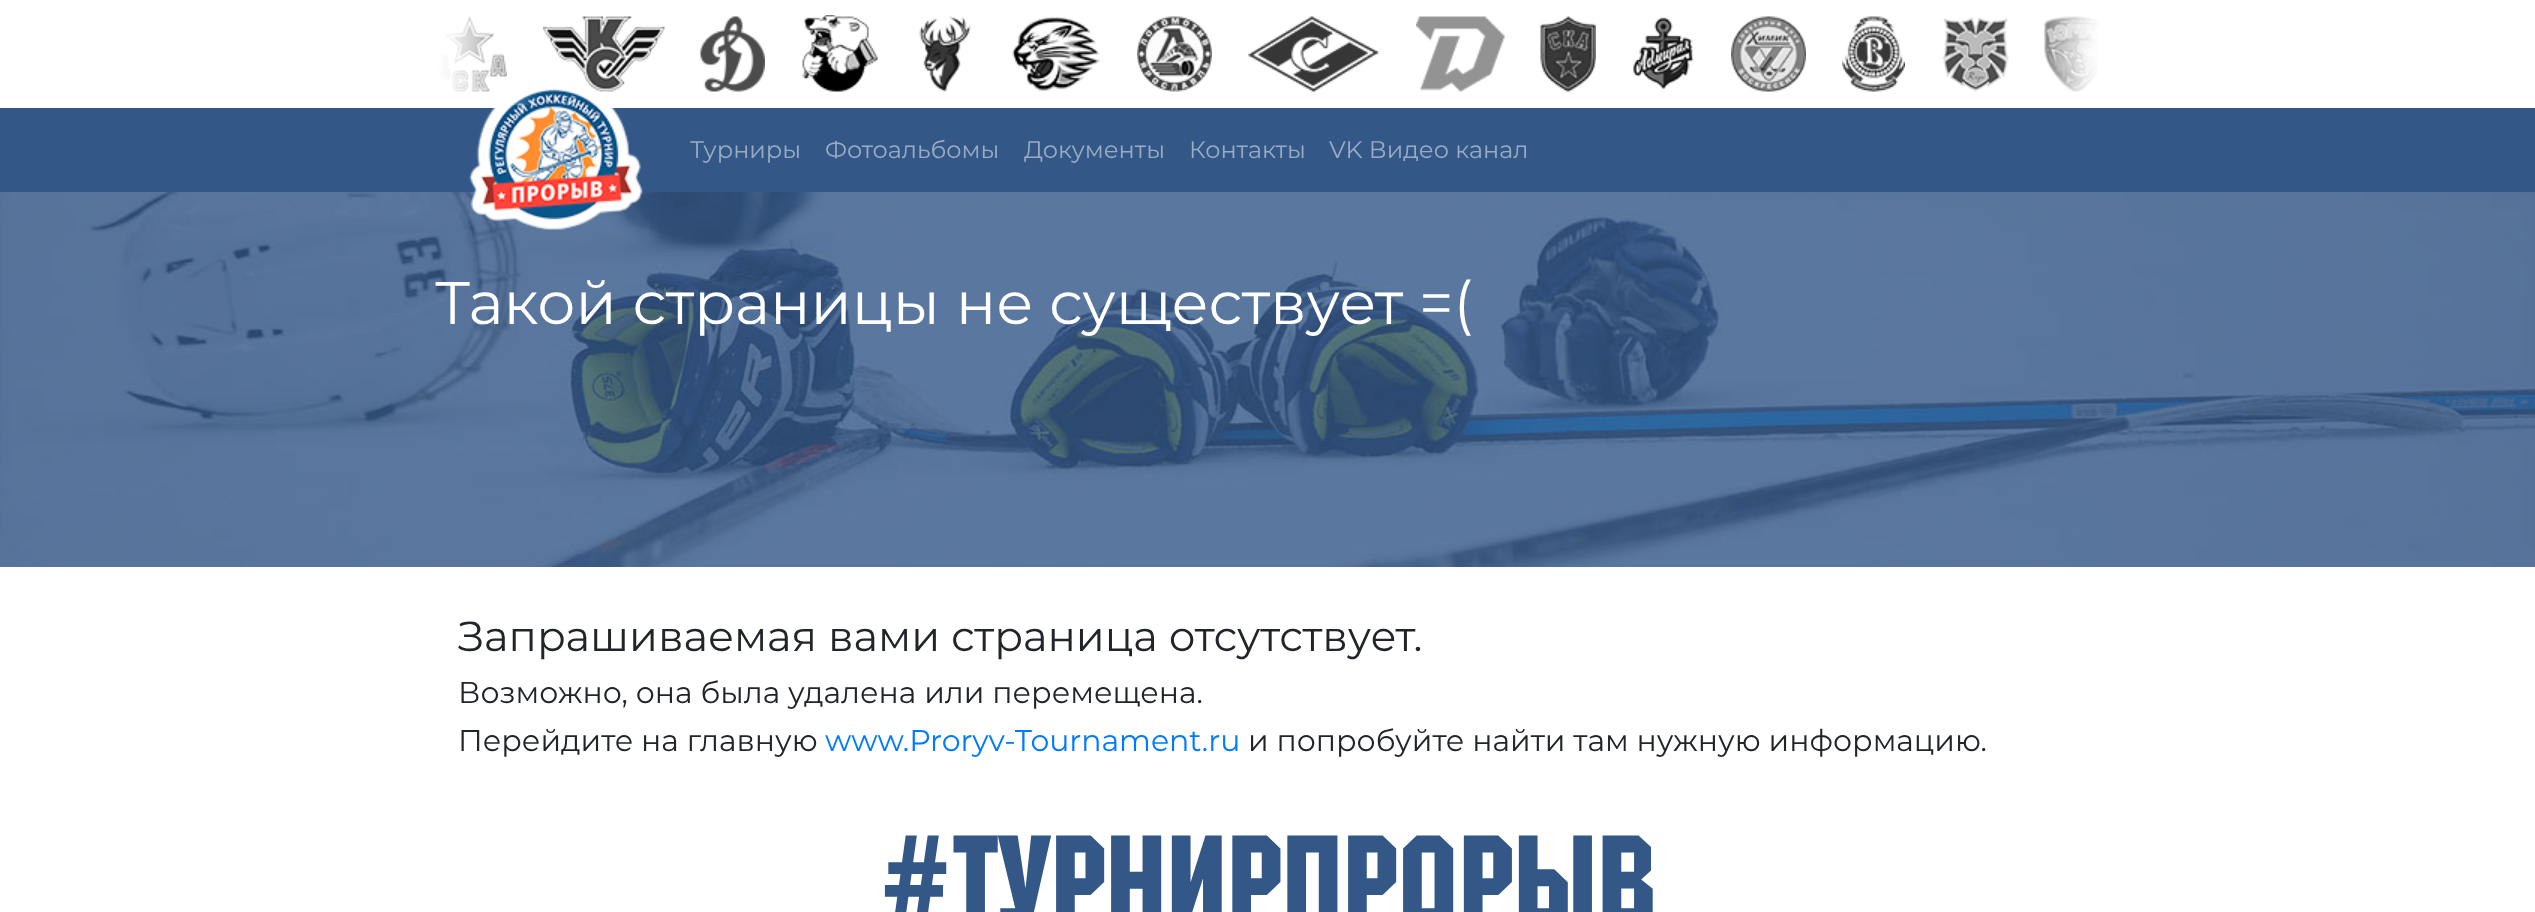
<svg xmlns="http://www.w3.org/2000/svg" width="2535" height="912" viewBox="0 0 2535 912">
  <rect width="100%" height="100%" fill="#fff"/>
  <image x="437" y="16" width="70" height="76" href="img/1.png"/>
  <image x="543" y="16" width="122" height="76" href="img/2.png"/>
  <image x="700" y="16" width="65" height="76" href="img/3.png"/>
  <image x="802" y="15" width="76" height="77" href="img/4.png"/>
  <image x="919" y="16" width="52" height="76" href="img/5.png"/>
  <image x="1012" y="16" width="89" height="76" href="img/6.png"/>
  <image x="1137" y="16" width="75" height="76" href="img/7.png"/>
  <image x="1248" y="16" width="131" height="76" href="img/8.png"/>
  <image x="1416" y="16" width="89" height="76" href="img/9.png"/>
  <image x="1540" y="16" width="56" height="76" href="img/10.png"/>
  <image x="1633" y="17" width="61" height="72" href="img/11.png"/>
  <image x="1731" y="16" width="75" height="76" href="img/12.png"/>
  <image x="1842" y="16" width="63" height="76" href="img/13.png"/>
  <image x="1942" y="16" width="67" height="76" href="img/14.png"/>
  <image x="2044" y="16" width="55" height="76" href="img/15.png"/>
  <path d="M0 108h2535v84H0z" fill="#335888"/>
  <image x="0" y="192" width="2535" height="375" href="img/19.png"/>
  <image x="469" y="89" width="174" height="141" href="img/18.png"/>
  <image x="435" y="16" width="102" height="89" href="img/16.png"/>
  <image x="2000" y="16" width="100" height="76" href="img/17.png"/>
  <g font-family="Montserrat" font-size="24" fill="#99acc4">
    <text x="690" y="158">Турниры</text>
    <text x="825" y="158">Фотоальбомы</text>
    <text x="1024" y="158">Документы</text>
    <text x="1189" y="158">Контакты</text>
    <text x="1329" y="158">VK Видео канал</text>
  </g>
  <text x="435" y="324" font-family="Montserrat" font-size="60" fill="#fff">Такой страницы не существует =(</text>
  <text x="458" y="651" font-family="Montserrat" font-size="42" fill="#212529">Запрашиваемая вами страница отсутствует.</text>
  <g font-family="Montserrat" font-size="30" fill="#212529">
    <text x="458" y="703">Возможно, она была удалена или перемещена.</text>
    <text x="458" y="751">Перейдите на главную</text>
  </g>
  <text x="825" y="751" font-family="Montserrat" font-size="30" fill="#007bff">www.Proryv-Tournament.ru</text>
  <text x="1248" y="751" font-family="Montserrat" font-size="30" fill="#212529">и попробуйте найти там нужную информацию.</text>
  <text x="878" y="925" font-family="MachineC" font-size="127.75" fill="#335888">#ТурнирПрорыв</text>
</svg>
